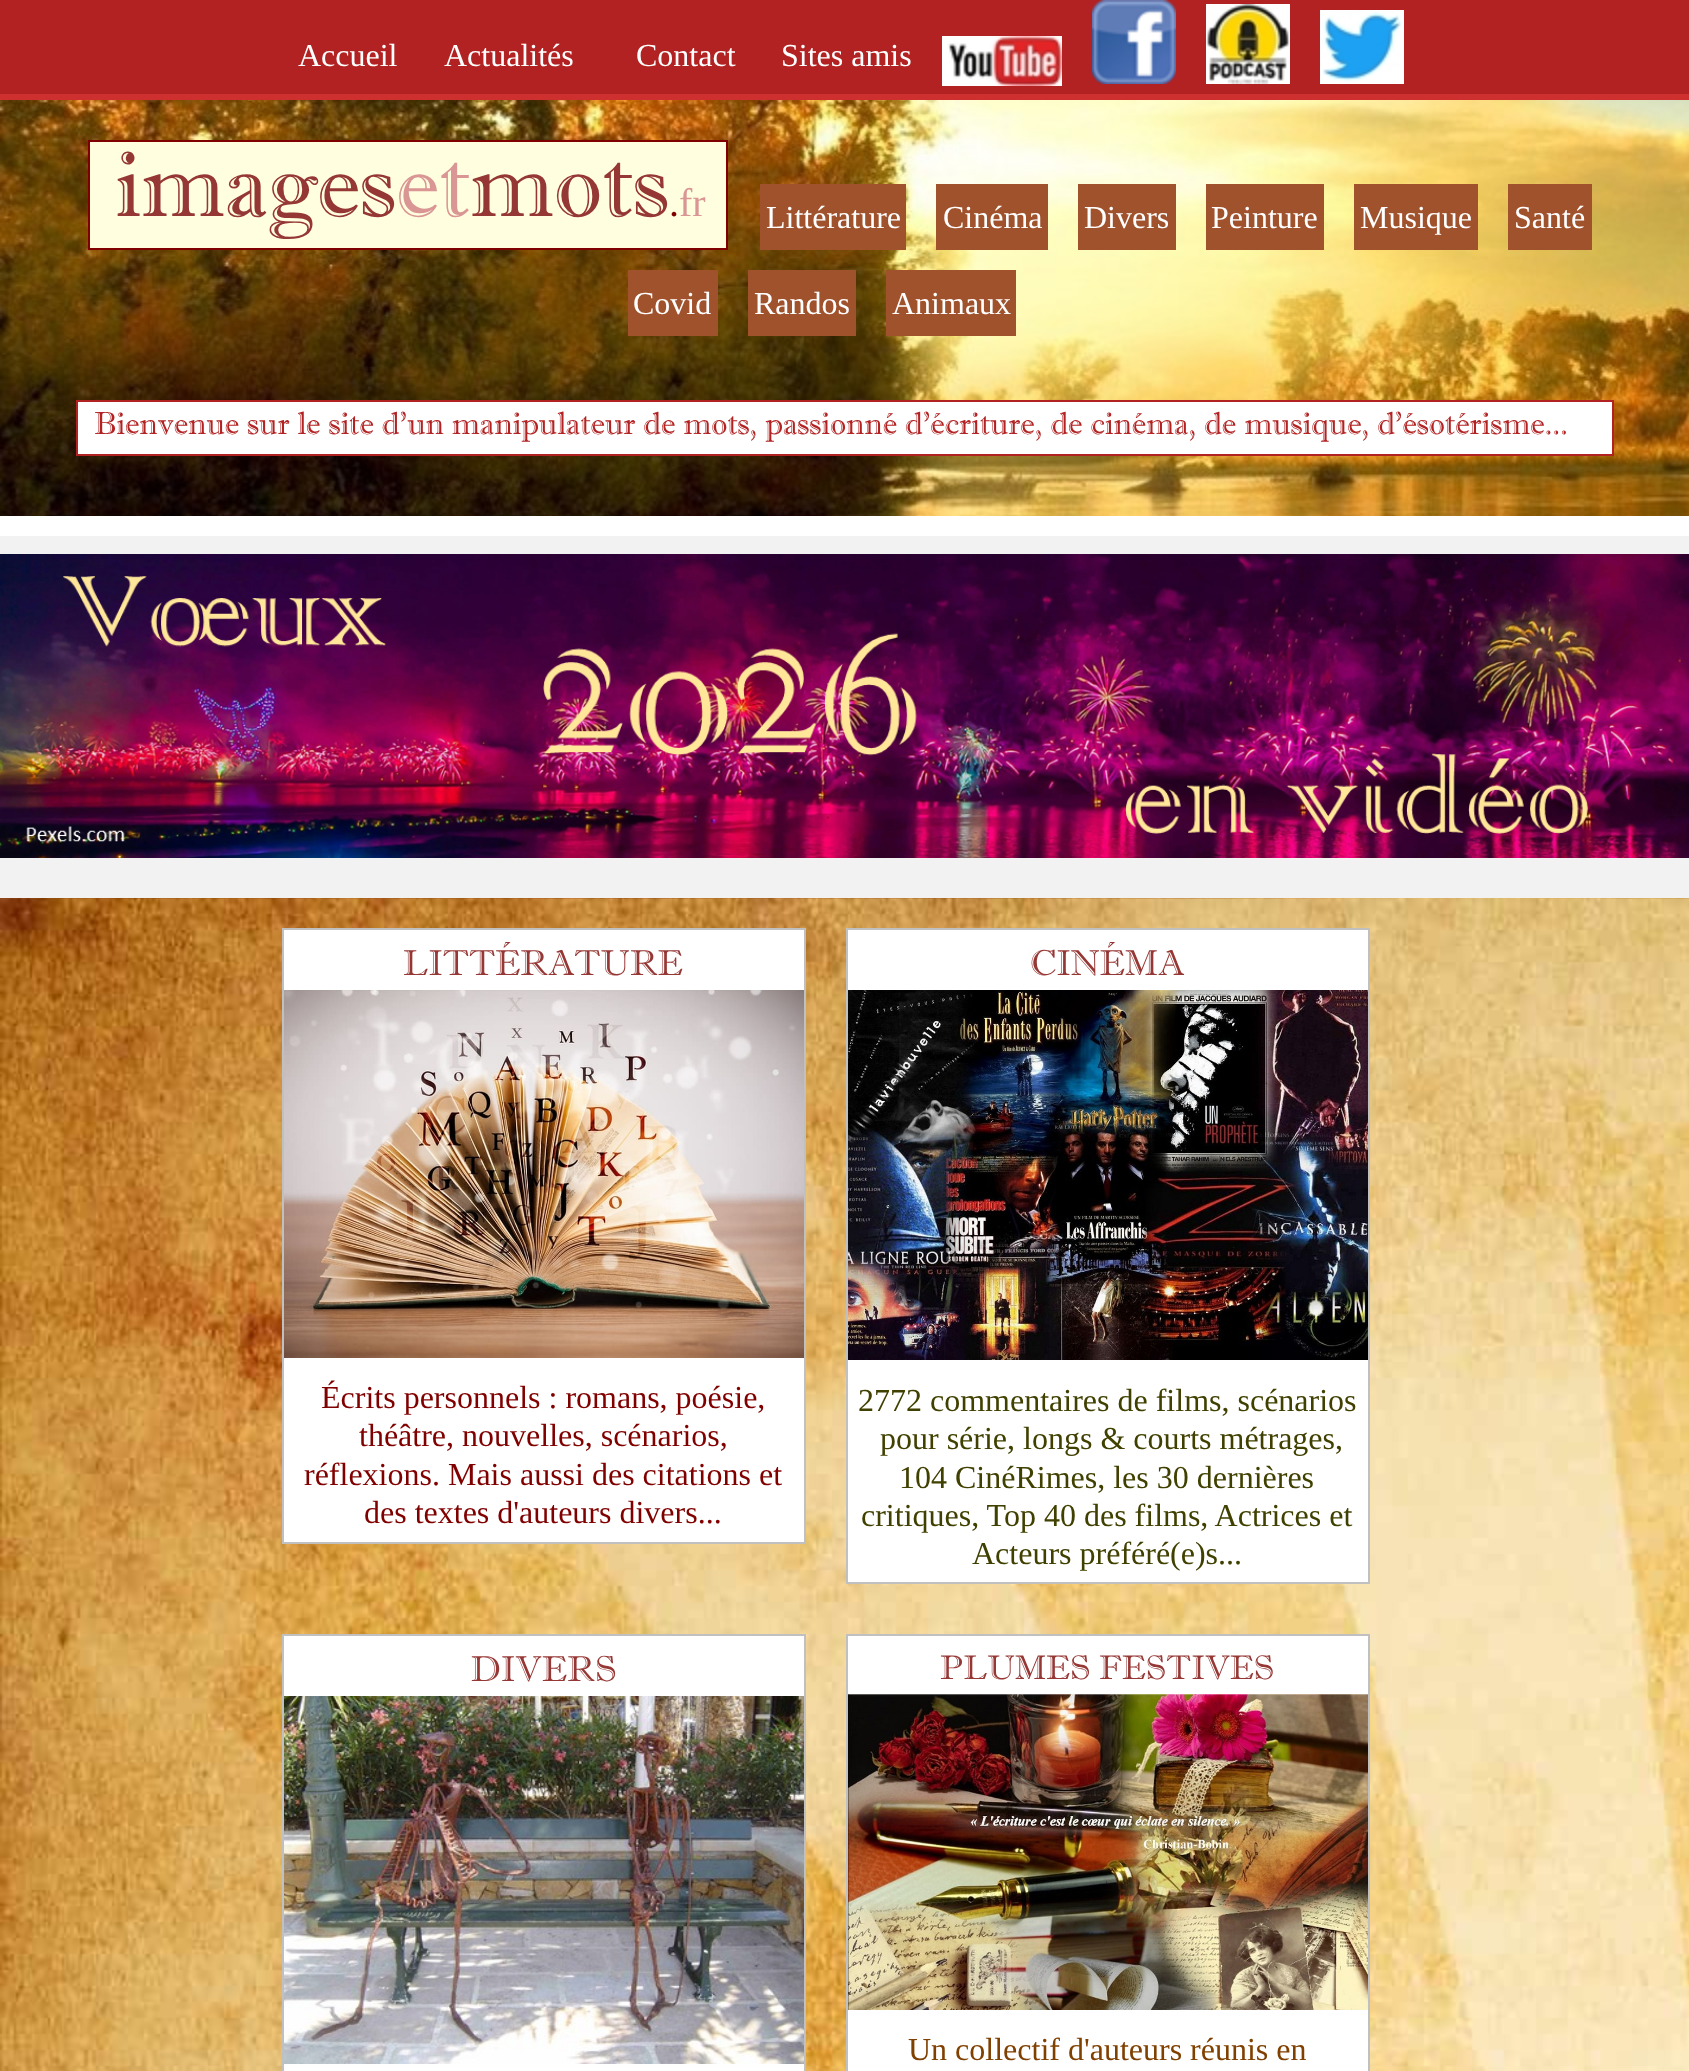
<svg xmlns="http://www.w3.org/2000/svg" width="1689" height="2071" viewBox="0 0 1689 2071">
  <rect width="100%" height="100%" fill="#f2f2f2"/>
  <image x="0" y="100" width="1689" height="416" href="img/1.png"/>
  <path d="M0 0h1689v94H0z" fill="#b22222"/>
  <path d="M0 94h1689v6H0z" fill="#ce3030"/>
  <image x="942" y="36" width="120" height="50" href="img/2.png"/>
  <image x="1092" y="0" width="84" height="84" href="img/3.png"/>
  <image x="1206" y="4" width="84" height="80" href="img/4.png"/>
  <image x="1320" y="10" width="84" height="74" href="img/5.png"/>
  <path d="M89 141h638v108H89z" fill="#ffffe0" stroke="#800000" stroke-width="2"/>
  <path d="M760 184h146v66H760z" fill="#a0522d"/>
  <path d="M936 184h112v66H936z" fill="#a0522d"/>
  <path d="M1078 184h98v66H1078z" fill="#a0522d"/>
  <path d="M1206 184h118v66H1206z" fill="#a0522d"/>
  <path d="M1354 184h124v66H1354z" fill="#a0522d"/>
  <path d="M1508 184h84v66H1508z" fill="#a0522d"/>
  <path d="M628 270h90v66H628z" fill="#a0522d"/>
  <path d="M748 270h108v66H748z" fill="#a0522d"/>
  <path d="M886 270h130v66H886z" fill="#a0522d"/>
  <path d="M77 401h1536v54H77z" fill="#fff" stroke="#b22222" stroke-width="2"/>
  <path d="M0 516h1689v20H0z" fill="#fff"/>
  <image x="0" y="554" width="1689" height="304" href="img/6.png"/>
  <image x="0" y="898" width="1689" height="1173" href="img/7.png"/>
  <path d="M283 929h522v614H283z" fill="#fff" stroke="#c0c0c0" stroke-width="2"/>
  <image x="284" y="990" width="520" height="368" href="img/8.png"/>
  <path d="M847 929h522v654H847z" fill="#fff" stroke="#c0c0c0" stroke-width="2"/>
  <image x="848" y="990" width="520" height="370" href="img/9.png"/>
  <path d="M283 1635h522v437H283z" fill="#fff" stroke="#c0c0c0" stroke-width="2"/>
  <image x="284" y="1696" width="520" height="368" href="img/10.png"/>
  <path d="M847 1635h522v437H847z" fill="#fff" stroke="#c0c0c0" stroke-width="2"/>
  <image x="848" y="1694" width="520" height="316" href="img/11.png"/>
  <g font-family="Liberation Serif" font-size="32" fill="#fff">
    <text x="298" y="66">Accueil</text>
    <text x="444" y="66">Actualités</text>
    <text x="636" y="66">Contact</text>
    <text x="781" y="66">Sites amis</text>
  </g>
  <text x="115" y="216" font-family="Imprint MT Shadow" font-size="96" fill="#953734">images</text>
  <text x="396" y="216" font-family="Imprint MT Shadow" font-size="96" fill="#d99694">et</text>
  <text x="470" y="216" font-family="Imprint MT Shadow" font-size="96" fill="#953734">mots</text>
  <text x="669" y="216" font-family="Liberation Serif" font-size="40" fill="#800000">.</text>
  <text x="679" y="216" font-family="Liberation Serif" font-size="40" fill="#d99694">fr</text>
  <g font-family="Liberation Serif" font-size="32" fill="#fff">
    <text x="766" y="228">Littérature</text>
    <text x="943" y="228">Cinéma</text>
    <text x="1084" y="228">Divers</text>
    <text x="1211" y="228">Peinture</text>
    <text x="1360" y="228">Musique</text>
    <text x="1514" y="228">Santé</text>
    <text x="633" y="314">Covid</text>
    <text x="754" y="314">Randos</text>
    <text x="892" y="314">Animaux</text>
  </g>
  <text x="94" y="434" font-family="Imprint MT Shadow" font-size="32" fill="#b22222">Bienvenue sur le site d'un manipulateur de mots, passionné d'écriture, de cinéma, de musique, d'ésotérisme...</text>
  <text x="403" y="975" font-family="Imprint MT Shadow" font-size="36" fill="#953734">LITTÉRATURE</text>
  <g font-family="Liberation Serif" font-size="32" fill="#800000">
    <text x="321" y="1408">Écrits personnels : romans, poésie,</text>
    <text x="359" y="1446">théâtre, nouvelles, scénarios,</text>
    <text x="304" y="1485">réflexions. Mais aussi des citations et</text>
    <text x="364" y="1523">des textes d'auteurs divers...</text>
  </g>
  <text x="1030" y="975" font-family="Imprint MT Shadow" font-size="36" fill="#953734">CINÉMA</text>
  <g font-family="Liberation Serif" font-size="32" fill="#404000">
    <text x="858" y="1411">2772 commentaires de films, scénarios</text>
    <text x="880" y="1449">pour série, longs &amp; courts métrages,</text>
    <text x="899" y="1488">104 CinéRimes, les 30 dernières</text>
    <text x="861" y="1526">critiques, Top 40 des films, Actrices et</text>
    <text x="972" y="1564">Acteurs préféré(e)s...</text>
  </g>
  <text x="470" y="1681" font-family="Imprint MT Shadow" font-size="36" fill="#953734">DIVERS</text>
  <text x="940" y="1679" font-family="Imprint MT Shadow" font-size="34" fill="#953734">PLUMES FESTIVES</text>
  <text x="908" y="2060" font-family="Liberation Serif" font-size="32" fill="#804000">Un collectif d'auteurs réunis en</text>
</svg>
